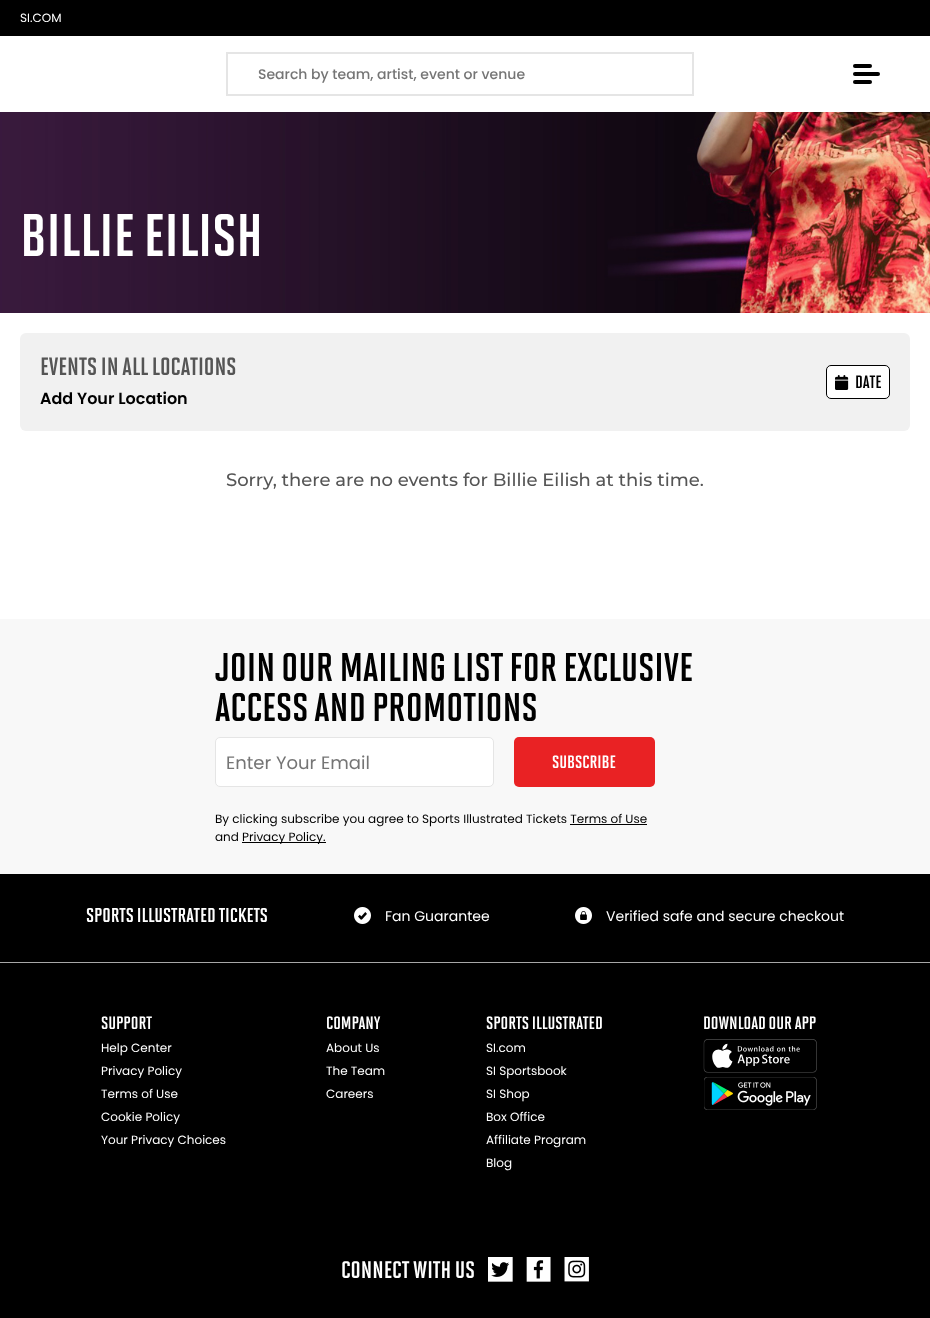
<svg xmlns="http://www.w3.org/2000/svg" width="930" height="1318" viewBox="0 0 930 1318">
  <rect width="100%" height="100%" fill="#fff"/>
  <path d="M0 0h930v36H0z" fill="#000"/>
  <path d="M227 53h466v42H227z" fill="none" stroke="#e5e5e5" stroke-width="2"/>
  <rect x="853" y="64" width="19" height="4" rx="2" fill="#000"/>
  <rect x="853" y="72" width="27" height="4" rx="2" fill="#000"/>
  <rect x="853" y="80" width="19" height="4" rx="2" fill="#000"/>
  <image x="0" y="112" width="930" height="201" href="img/1.png"/>
  <rect x="20" y="333" width="890" height="98" rx="6" fill="#f1f1f1"/>
  <rect x="826.5" y="365.5" width="63" height="33" rx="4.5" fill="#fff" stroke="#000"/>
  <image x="835" y="375" width="14" height="15" href="img/2.png"/>
  <path d="M0 619h930v255H0z" fill="#f8f8f8"/>
  <rect x="215.5" y="737.5" width="278" height="49" rx="4.5" fill="#fff" stroke="#e5e5e5"/>
  <rect x="514" y="737" width="141" height="50" rx="5" fill="#e92224"/>
  <path d="M570 824h77v1H570z" fill="#000"/>
  <path d="M242 842h84v1H242z" fill="#000"/>
  <path d="M0 874h930v444H0z" fill="#000"/>
  <image x="354" y="907" width="17" height="17" href="img/3.png"/>
  <image x="575" y="907" width="17" height="17" href="img/4.png"/>
  <path d="M0 962h930v1H0z" fill="#a7a7a7"/>
  <image x="703" y="1039" width="114" height="34" href="img/5.png"/>
  <image x="704" y="1077" width="113" height="33" href="img/6.png"/>
  <image x="488" y="1257" width="25" height="25" href="img/7.png"/>
  <image x="526" y="1257" width="25" height="25" href="img/8.png"/>
  <image x="564" y="1257" width="25" height="25" href="img/9.png"/>
  <text x="20" y="22" font-family="Poppins" font-size="12" fill="#fff">SI.COM</text>
  <text x="258" y="79" font-family="Poppins" font-size="14" font-weight="500" fill="#757575">Search by team, artist, event or venue</text>
  <text x="20" y="256" font-family="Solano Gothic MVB" font-size="60" font-weight="bold" fill="#fff">BILLIE EILISH</text>
  <text x="40" y="375" font-family="Solano Gothic MVB" font-size="25" font-weight="bold" fill="#555">EVENTS IN ALL LOCATIONS</text>
  <text x="40" y="404" font-family="Poppins" font-size="16" font-weight="600" fill="#000">Add Your Location</text>
  <text x="855" y="388" font-family="Solano Gothic MVB" font-size="18" font-weight="bold" fill="#000">DATE</text>
  <text x="226" y="486" font-family="Montserrat" font-size="18" font-weight="500" fill="#555">Sorry, there are no events for Billie Eilish at this time.</text>
  <g font-family="Solano Gothic MVB" font-size="40" font-weight="bold" fill="#000">
    <text x="215" y="681">JOIN OUR MAILING LIST FOR EXCLUSIVE</text>
    <text x="215" y="721">ACCESS AND PROMOTIONS</text>
  </g>
  <text x="226" y="769" font-family="Poppins" font-size="18" fill="#757575">Enter Your Email</text>
  <text x="552" y="768" font-family="Solano Gothic MVB" font-size="18" font-weight="bold" fill="#fff">SUBSCRIBE</text>
  <g font-family="Poppins" font-size="12" fill="#000">
    <text x="215" y="823">By clicking subscribe you agree to Sports Illustrated Tickets Terms of Use</text>
    <text x="215" y="841">and</text>
    <text x="242" y="841">Privacy Policy.</text>
  </g>
  <text x="86" y="922" font-family="Solano Gothic MVB" font-size="20" font-weight="bold" fill="#fff">SPORTS ILLUSTRATED TICKETS</text>
  <g font-family="Poppins" font-size="14" fill="#fff">
    <text x="385" y="921">Fan Guarantee</text>
    <text x="606" y="921">Verified safe and secure checkout</text>
  </g>
  <text x="101" y="1029" font-family="Solano Gothic MVB" font-size="18" font-weight="bold" fill="#fff">SUPPORT</text>
  <g font-family="Poppins" font-size="12" fill="#fff">
    <text x="101" y="1052">Help Center</text>
    <text x="101" y="1075">Privacy Policy</text>
    <text x="101" y="1098">Terms of Use</text>
    <text x="101" y="1121">Cookie Policy</text>
    <text x="101" y="1144">Your Privacy Choices</text>
  </g>
  <text x="326" y="1029" font-family="Solano Gothic MVB" font-size="18" font-weight="bold" fill="#fff">COMPANY</text>
  <g font-family="Poppins" font-size="12" fill="#fff">
    <text x="326" y="1052">About Us</text>
    <text x="326" y="1075">The Team</text>
    <text x="326" y="1098">Careers</text>
  </g>
  <text x="486" y="1029" font-family="Solano Gothic MVB" font-size="18" font-weight="bold" fill="#fff">SPORTS ILLUSTRATED</text>
  <g font-family="Poppins" font-size="12" fill="#fff">
    <text x="486" y="1052">SI.com</text>
    <text x="486" y="1075">SI Sportsbook</text>
    <text x="486" y="1098">SI Shop</text>
    <text x="486" y="1121">Box Office</text>
    <text x="486" y="1144">Affiliate Program</text>
    <text x="486" y="1167">Blog</text>
  </g>
  <text x="703" y="1029" font-family="Solano Gothic MVB" font-size="18" font-weight="bold" fill="#fff">DOWNLOAD OUR APP</text>
  <text x="341" y="1278" font-family="Solano Gothic MVB" font-size="24" font-weight="bold" fill="#fff">CONNECT WITH US</text>
</svg>
